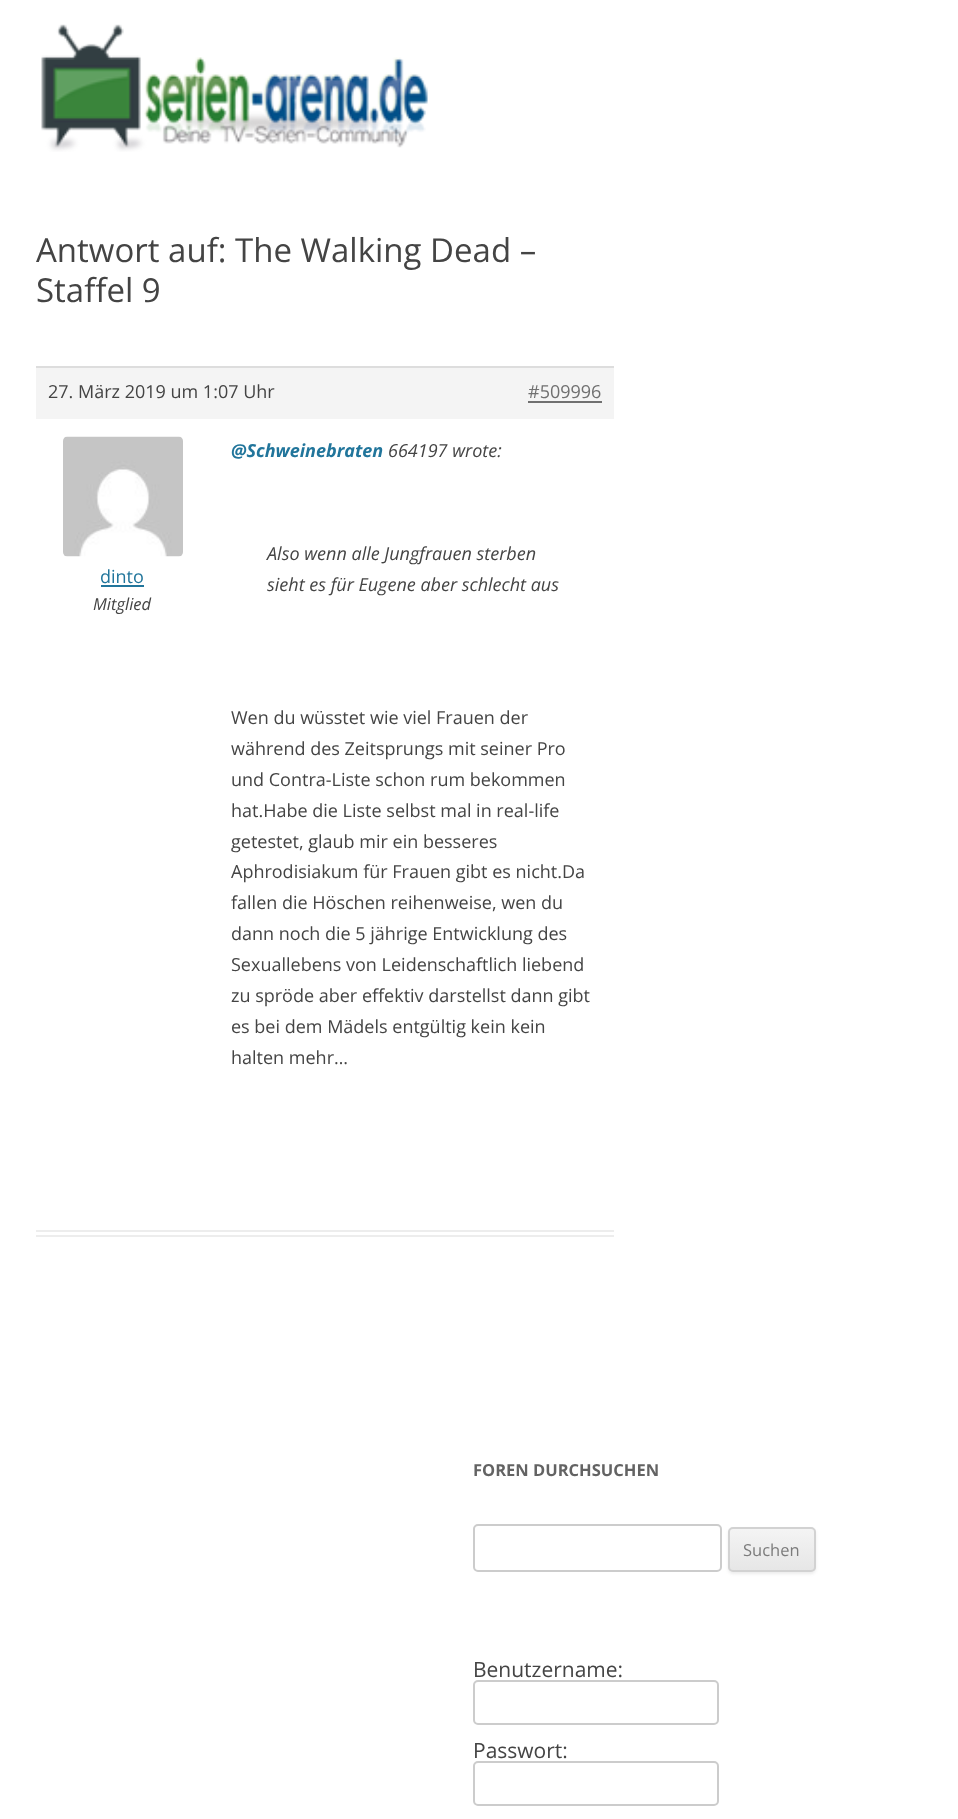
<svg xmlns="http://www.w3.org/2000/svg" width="958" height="1819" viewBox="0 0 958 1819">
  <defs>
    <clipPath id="clip1"><rect x="728" y="1527" width="88" height="45" rx="5"/></clipPath>
    <linearGradient id="g1" gradientUnits="userSpaceOnUse" x1="772" y1="1529" x2="772" y2="1571"><stop offset="0" stop-color="#f4f4f4"/><stop offset="1" stop-color="#e6e6e6"/></linearGradient>
  </defs>
  <rect width="100%" height="100%" fill="#fff"/>
  <image x="41" y="24" width="387" height="128" href="img/1.png"/>
  <path d="M36 1230h578v2H36z" fill="#ededed"/>
  <path d="M36 1235h578v2H36z" fill="#ededed"/>
  <path d="M36 368h578v51H36z" fill="#f4f4f4"/>
  <path d="M36 366h578v2H36z" fill="#ddd"/>
  <path d="M528 401h74v2H528z" fill="#707070"/>
  <image x="63" y="436" width="120" height="121" href="img/2.png"/>
  <path d="M101 585h43v2H101z" fill="#21759b"/>
  <rect x="474" y="1525" width="247" height="46" rx="4" fill="none" stroke="#ccc" stroke-width="2"/>
  <rect x="728" y="1529" width="88" height="45" rx="5" fill="#4040401a" filter="blur(1.5px)"/>
  <g clip-path="url(#clip1)">
    <path d="M728 1529h88v42H728z" fill="url(#g1)"/>
  </g>
  <rect x="729" y="1528" width="86" height="43" rx="4" fill="none" stroke="#d2d2d2" stroke-width="2"/>
  <rect x="474" y="1681" width="244" height="43" rx="4" fill="none" stroke="#ccc" stroke-width="2"/>
  <rect x="474" y="1762" width="244" height="43" rx="4" fill="none" stroke="#ccc" stroke-width="2"/>
  <g font-family="Open Sans" font-size="33" fill="#444">
    <text x="36" y="262">Antwort auf: The Walking Dead –</text>
    <text x="36" y="302">Staffel 9</text>
  </g>
  <text x="48" y="398" font-family="Open Sans" font-size="18" fill="#444">27. März 2019 um 1:07 Uhr</text>
  <text x="528" y="398" font-family="Open Sans" font-size="18" fill="#707070">#509996</text>
  <text x="100" y="583" font-family="Open Sans" font-size="18" fill="#21759b">dinto</text>
  <text x="93" y="610" font-family="Open Sans" font-size="16.5" font-style="italic" fill="#444">Mitglied</text>
  <text x="231" y="457" font-family="Open Sans" font-size="18" font-weight="bold" font-style="italic" fill="#21759b">@Schweinebraten</text>
  <g font-family="Open Sans" font-size="18" font-style="italic" fill="#444">
    <text x="388" y="457">664197 wrote:</text>
    <text x="267" y="560">Also wenn alle Jungfrauen sterben</text>
    <text x="267" y="591">sieht es für Eugene aber schlecht aus</text>
  </g>
  <g font-family="Open Sans" font-size="18" fill="#444">
    <text x="231" y="724">Wen du wüsstet wie viel Frauen der</text>
    <text x="231" y="755">während des Zeitsprungs mit seiner Pro</text>
    <text x="231" y="786">und Contra-Liste schon rum bekommen</text>
    <text x="231" y="817">hat.Habe die Liste selbst mal in real-life</text>
    <text x="231" y="848">getestet, glaub mir ein besseres</text>
    <text x="231" y="878">Aphrodisiakum für Frauen gibt es nicht.Da</text>
    <text x="231" y="909">fallen die Höschen reihenweise, wen du</text>
    <text x="231" y="940">dann noch die 5 jährige Entwicklung des</text>
    <text x="231" y="971">Sexuallebens von Leidenschaftlich liebend</text>
    <text x="231" y="1002">zu spröde aber effektiv darstellst dann gibt</text>
    <text x="231" y="1033">es bei dem Mädels entgültig kein kein</text>
    <text x="231" y="1064">halten mehr…</text>
  </g>
  <text x="473" y="1476" font-family="Open Sans" font-size="16.5" font-weight="bold" fill="#636363">FOREN DURCHSUCHEN</text>
  <text x="743" y="1556" font-family="Open Sans" font-size="16.5" fill="#7c7c7c">Suchen</text>
  <g font-family="Open Sans" font-size="21" fill="#444">
    <text x="473" y="1677">Benutzername:</text>
    <text x="473" y="1758">Passwort:</text>
  </g>
</svg>
